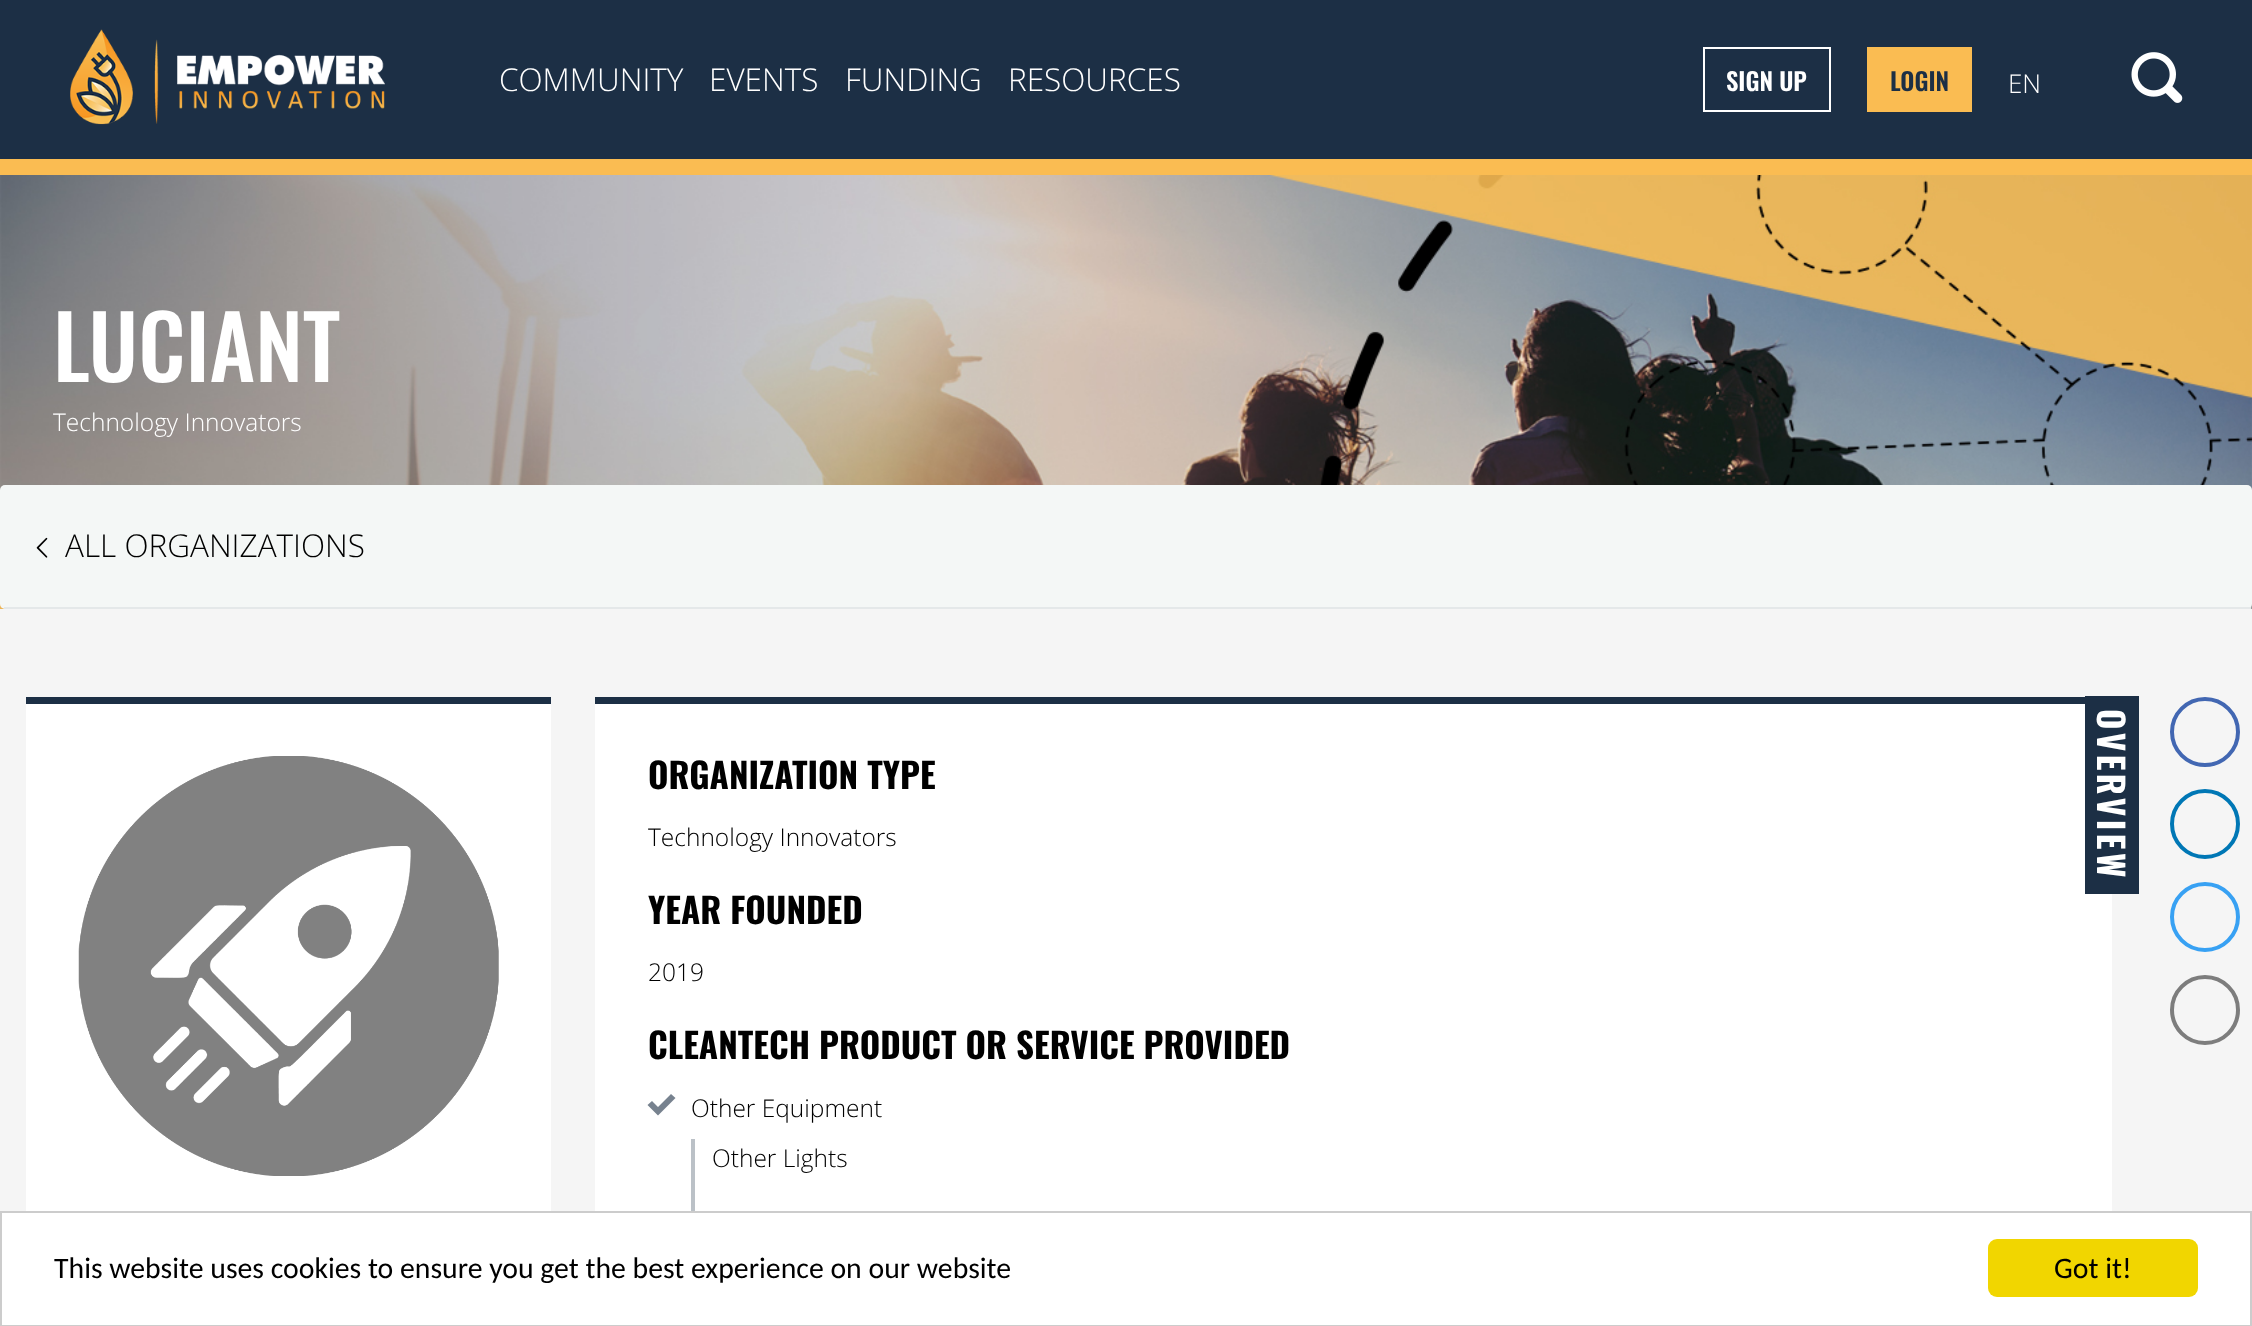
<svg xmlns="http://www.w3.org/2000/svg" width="2252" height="1326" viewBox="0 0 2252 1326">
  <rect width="100%" height="100%" fill="#f5f5f5"/>
  <path d="M0 0h2252v159H0z" fill="#1c2f45"/>
  <path d="M0 159h2252v16H0z" fill="#fabc52"/>
  <image x="70" y="29" width="315" height="96" href="img/1.png"/>
  <path d="M1704 48h126v63H1704z" fill="none" stroke="#fff" stroke-width="2"/>
  <path d="M1867 47h105v65H1867z" fill="#fabc52"/>
  <image x="2131" y="52" width="52" height="51" href="img/2.png"/>
  <image x="0" y="175" width="2252" height="434" href="img/3.png"/>
  <rect y="485" width="2252" height="124" rx="5" fill="#f4f7f6"/>
  <path d="M4 607h2247v2H4z" fill="#e4e8e9"/>
  <image x="36" y="537" width="12" height="21" href="img/4.png"/>
  <path d="M26 704h525v507H26z" fill="#fff"/>
  <path d="M26 697h525v7H26z" fill="#1c2f45"/>
  <image x="78" y="756" width="421" height="420" href="img/5.png"/>
  <path d="M595 704h1517v507H595z" fill="#fff"/>
  <path d="M595 697h1490v7H595z" fill="#1c2f45"/>
  <path d="M2085 696h54v198H2085z" fill="#1c2f45"/>
  <path d="M671 1094L658 1107L652 1101L647.5 1105L658 1115.5L675.5 1098Z" fill="#77828f"/>
  <path d="M691 1139h4v72H691z" fill="#bbc1c7"/>
  <circle cx="2205" cy="732" r="33" fill="none" stroke="#4267b2" stroke-width="4"/>
  <circle cx="2205" cy="824" r="33" fill="none" stroke="#0077b5" stroke-width="4"/>
  <circle cx="2205" cy="917" r="33" fill="none" stroke="#38a1f3" stroke-width="4"/>
  <circle cx="2205" cy="1010" r="33" fill="none" stroke="#7d7d7d" stroke-width="4"/>
  <path d="M1 1212h2250v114H1z" fill="#fff" stroke="#ccc" stroke-width="2"/>
  <rect x="1988" y="1239" width="210" height="58" rx="9" fill="#f1d600"/>
  <g font-family="Open Sans" font-size="31.5" font-weight="300" fill="#fff">
    <text x="499" y="91">COMMUNITY</text>
    <text x="709" y="91">EVENTS</text>
    <text x="845" y="91">FUNDING</text>
    <text x="1008" y="91">RESOURCES</text>
  </g>
  <text x="1726" y="91" font-family="Oswald" font-size="24.5" font-weight="600" fill="#fff">SIGN UP</text>
  <text x="1890" y="91" font-family="Oswald" font-size="24.5" font-weight="600" fill="#1c2f45">LOGIN</text>
  <text x="2008" y="93" font-family="Open Sans" font-size="26" font-weight="300" fill="#fff">EN</text>
  <text x="53" y="382" font-family="Oswald" font-size="87.5" font-weight="500" fill="#fff">LUCIANT</text>
  <text x="53" y="431" font-family="Open Sans" font-size="24.5" font-weight="300" fill="#fff">Technology Innovators</text>
  <text x="65" y="557" font-family="Open Sans" font-size="31.5" font-weight="300" fill="#000">ALL ORGANIZATIONS</text>
  <text x="648" y="789" font-family="Oswald" font-size="35" font-weight="bold" fill="#000">ORGANIZATION TYPE</text>
  <text x="648" y="846" font-family="Open Sans" font-size="24.5" font-weight="300" fill="#000">Technology Innovators</text>
  <text x="2097" y="709" transform="rotate(90 2097 709)" font-family="Oswald" font-size="35" font-weight="bold" letter-spacing="3.5" fill="#fff">OVERVIEW</text>
  <text x="648" y="924" font-family="Oswald" font-size="35" font-weight="bold" fill="#000">YEAR FOUNDED</text>
  <text x="648" y="981" font-family="Open Sans" font-size="24.5" font-weight="300" fill="#000">2019</text>
  <text x="648" y="1059" font-family="Oswald" font-size="35" font-weight="bold" fill="#000">CLEANTECH PRODUCT OR SERVICE PROVIDED</text>
  <g font-family="Open Sans" font-size="24.5" font-weight="300" fill="#000">
    <text x="691" y="1117">Other Equipment</text>
    <text x="712" y="1167">Other Lights</text>
  </g>
  <g font-family="Carlito" font-size="29.75" fill="#000">
    <text x="54" y="1278">This website uses cookies to ensure you get the best experience on our website</text>
    <text x="2054" y="1278">Got it!</text>
  </g>
</svg>
